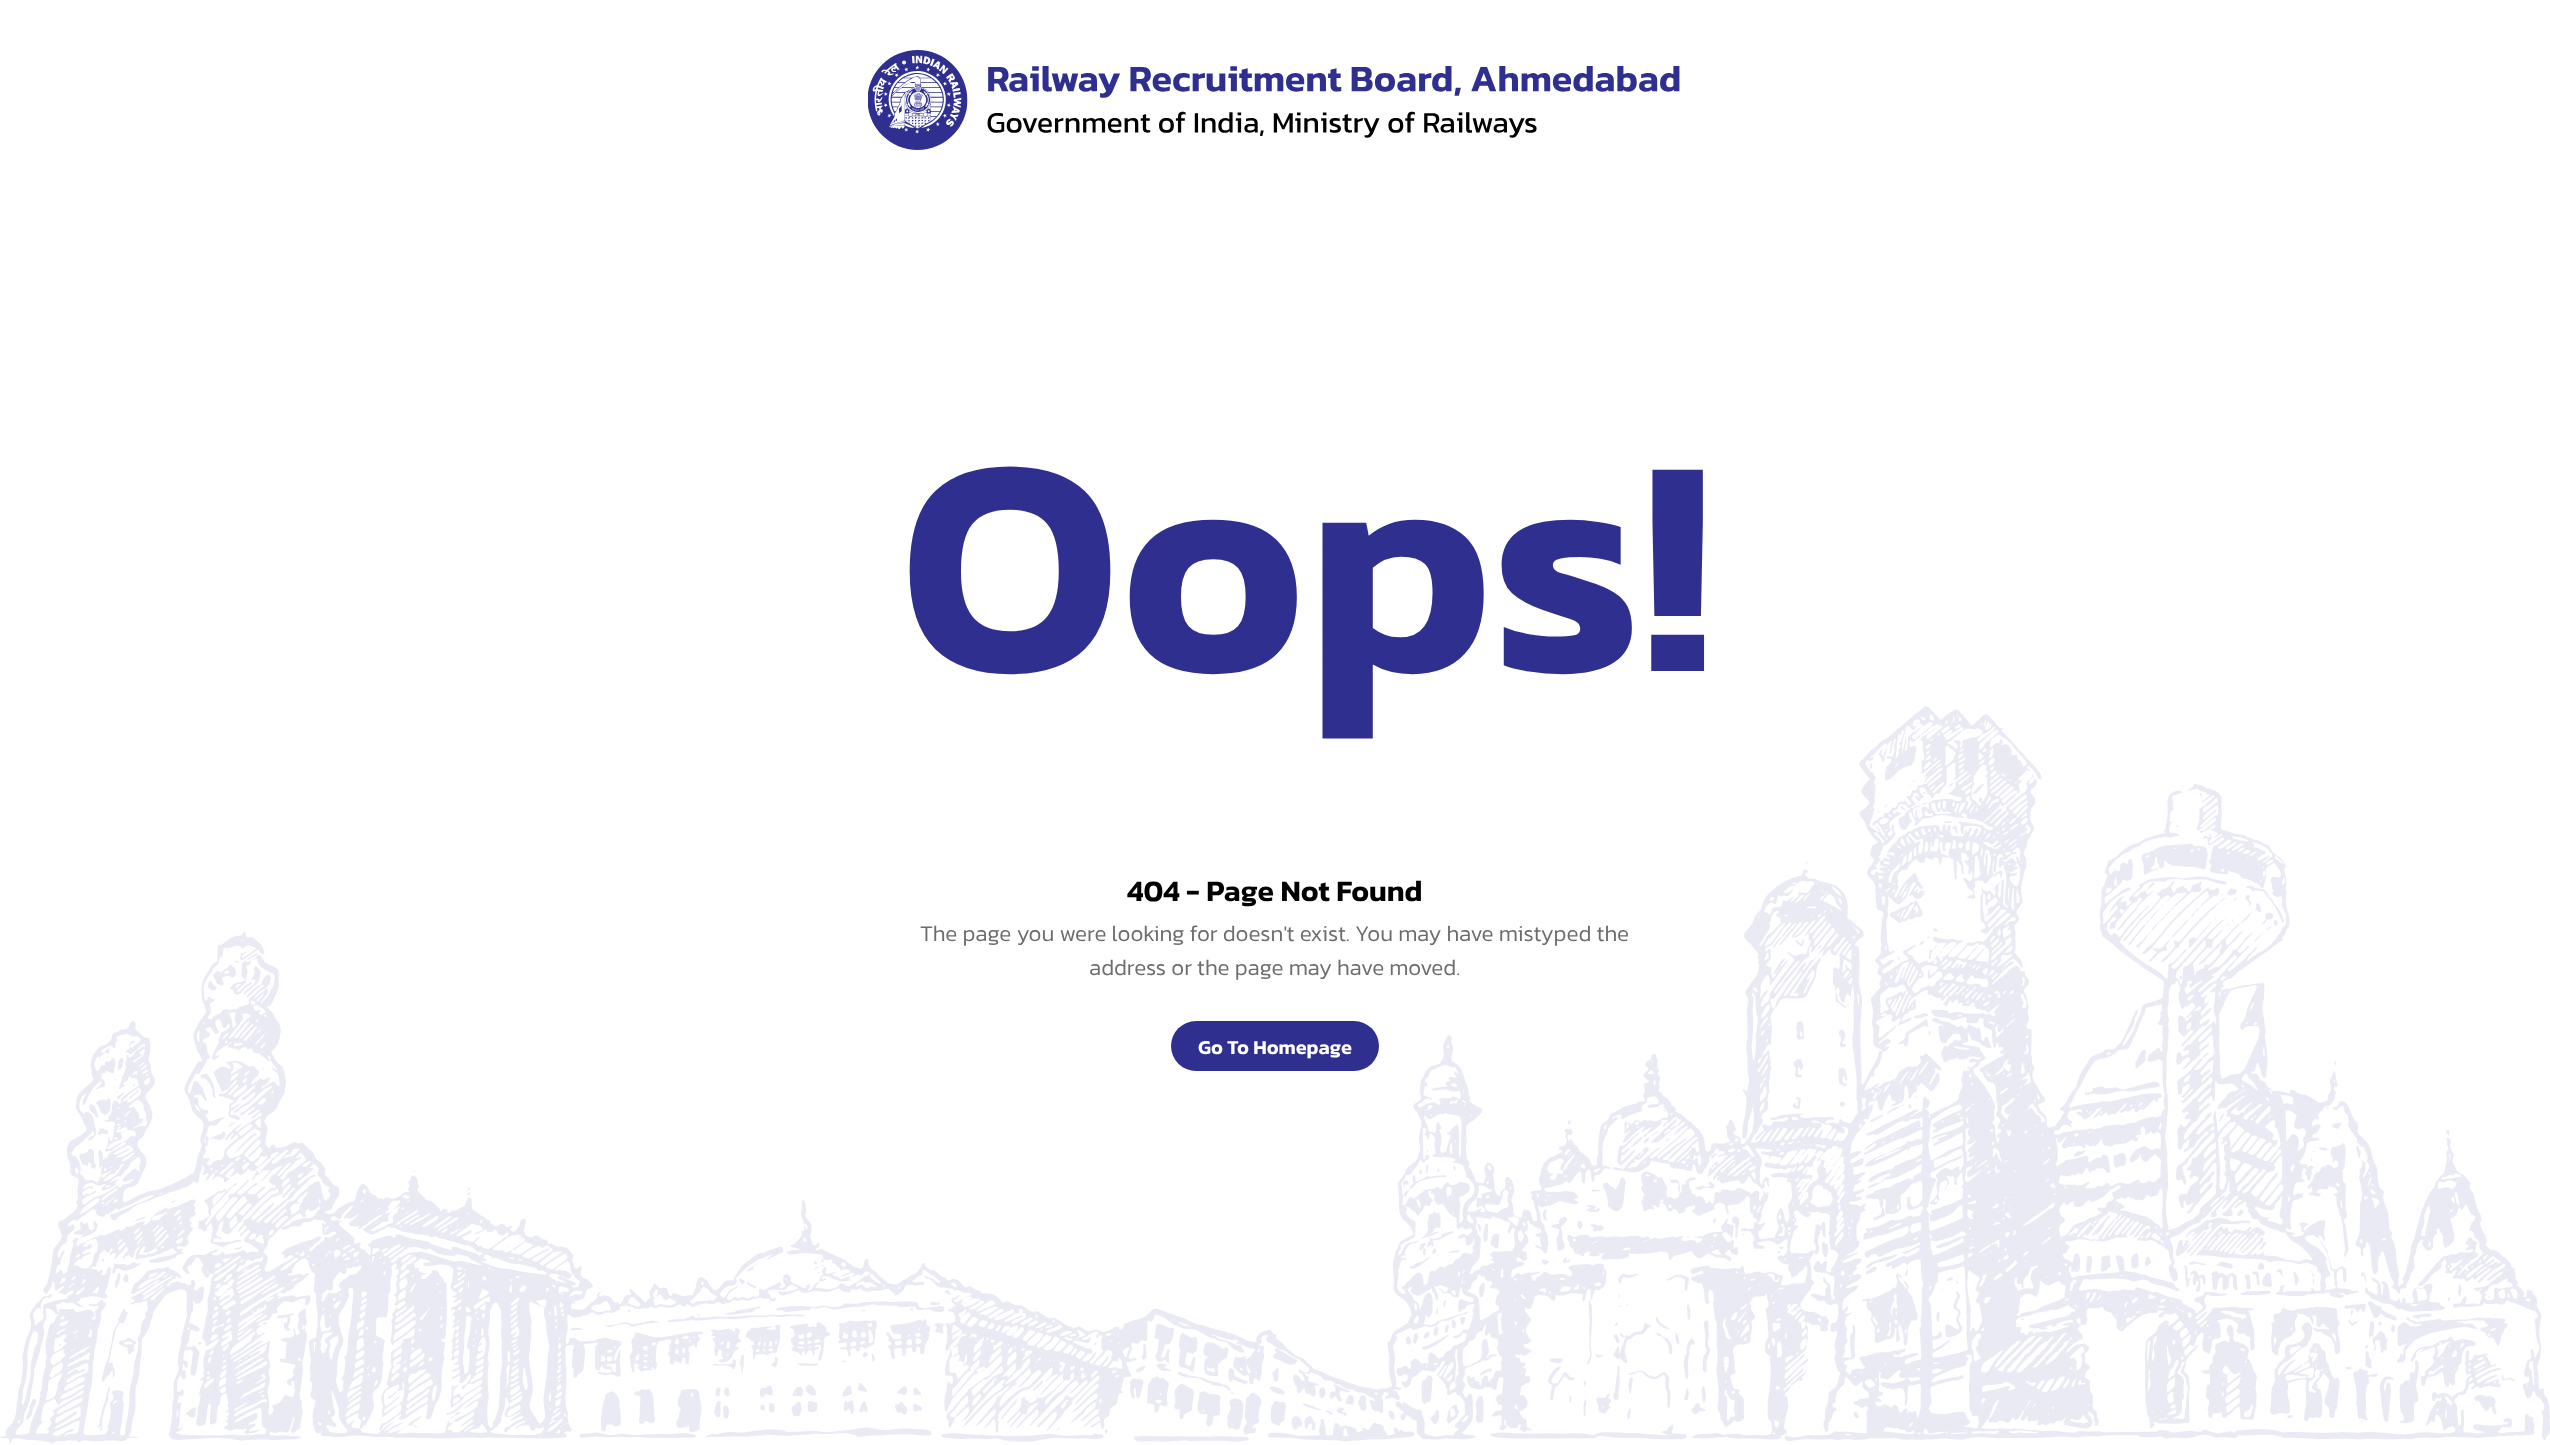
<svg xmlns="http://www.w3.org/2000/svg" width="2550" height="1445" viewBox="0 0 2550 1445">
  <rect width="100%" height="100%" fill="#fff"/>
  <image x="0" y="706" width="2550" height="738" href="img/1.png"/>
  <image x="868" y="50" width="812" height="100" href="img/2.png"/>
  <rect x="1171" y="1021" width="208" height="50" rx="25" fill="#2f2f8f"/>
  <text x="900" y="671" font-family="Kanit" font-size="312.5" font-weight="600" fill="#2f2f8f">Oops!</text>
  <text x="1127" y="901" font-family="Kanit" font-size="30" font-weight="600" fill="#000">404 - Page Not Found</text>
  <g font-family="Kanit" font-size="22.5" font-weight="300" fill="#6c6c6c">
    <text x="920" y="941">The page you were looking for doesn't exist. You may have mistyped the</text>
    <text x="1089" y="975">address or the page may have moved.</text>
  </g>
  <text x="1198" y="1054" font-family="Kanit" font-size="20" font-weight="600" fill="#fff">Go To Homepage</text>
</svg>
